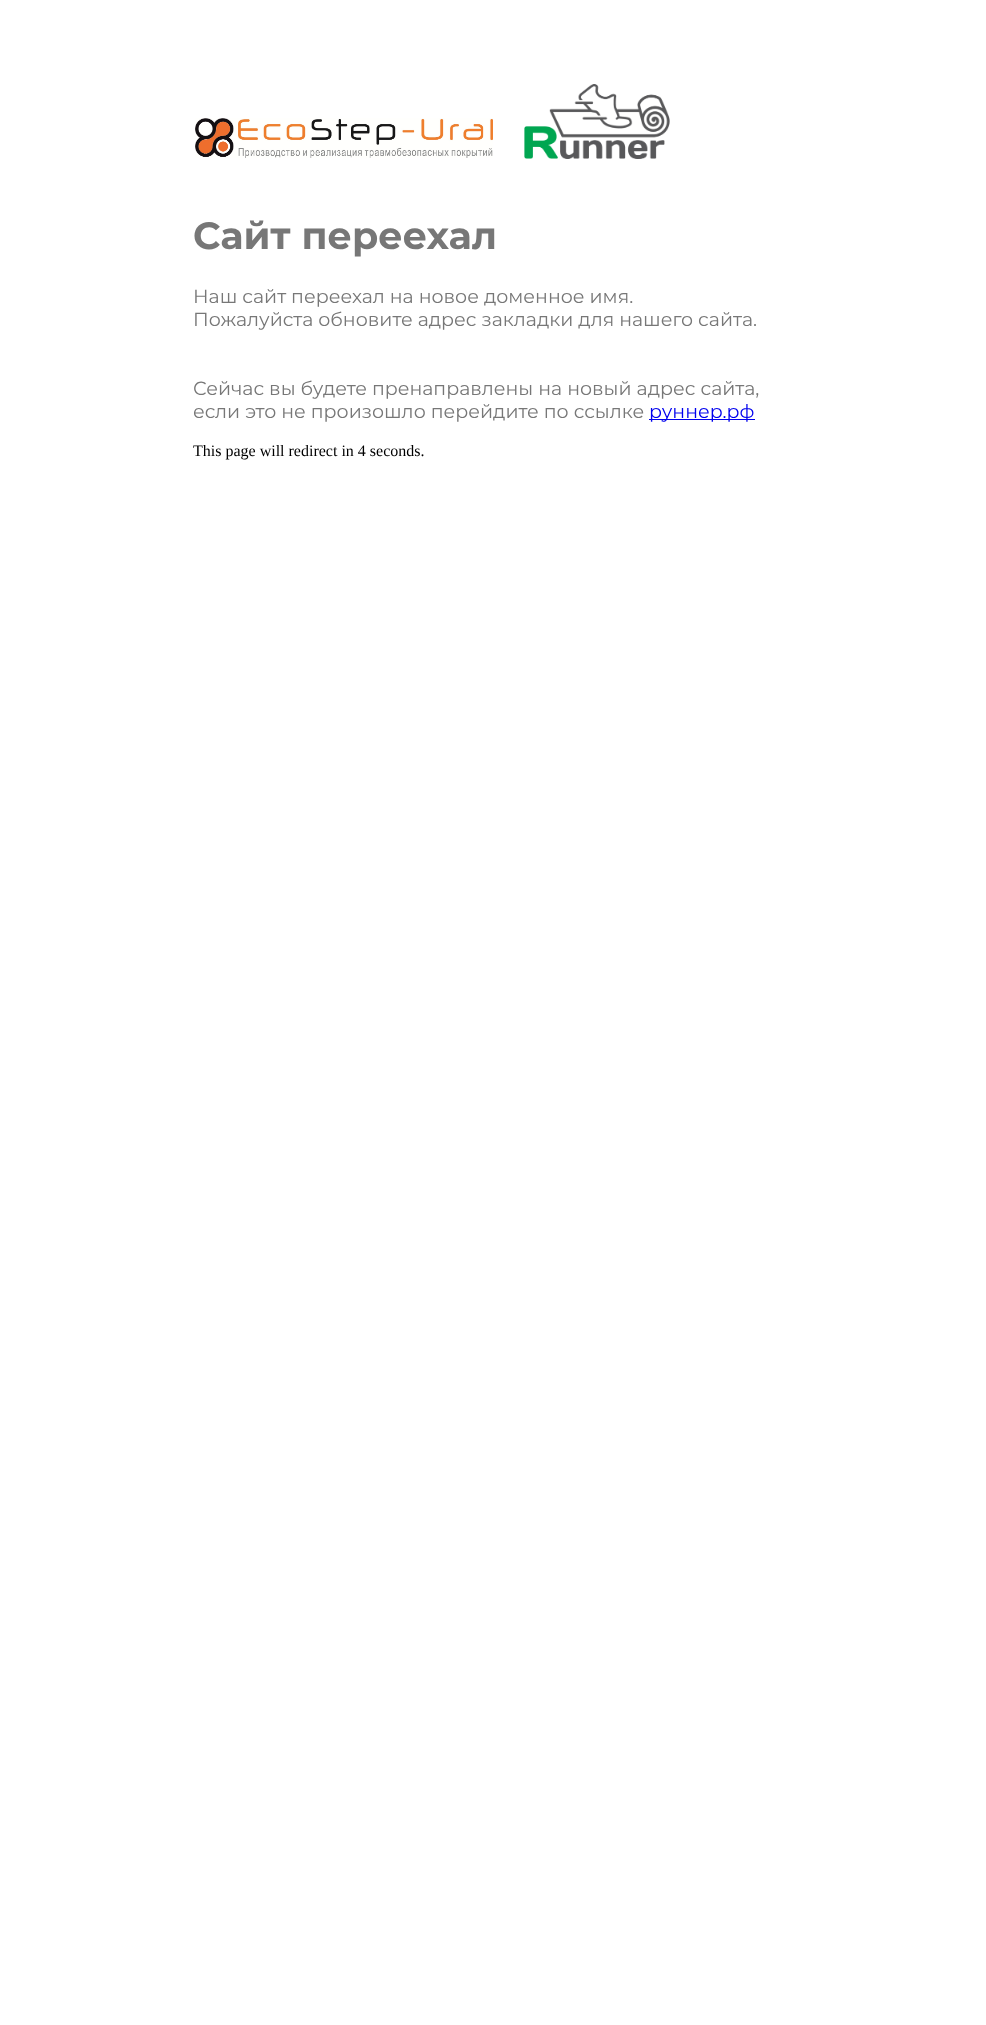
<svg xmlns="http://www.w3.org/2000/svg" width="986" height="2025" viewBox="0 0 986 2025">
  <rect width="100%" height="100%" fill="#fff"/>
  <image x="195" y="118" width="298" height="40" href="img/1.png"/>
  <image x="524" y="84" width="146" height="75" href="img/2.png"/>
  <path d="M649 419h106v1H649z" fill="#00e"/>
  <text x="193" y="249" font-family="Montserrat" font-size="38" font-weight="bold" fill="#777">Сайт переехал</text>
  <g font-family="Montserrat" font-size="19" fill="#777">
    <text x="193" y="303">Наш сайт переехал на новое доменное имя.</text>
    <text x="193" y="326">Пожалуйста обновите адрес закладки для нашего сайта.</text>
    <text x="193" y="395">Сейчас вы будете пренаправлены на новый адрес сайта,</text>
    <text x="193" y="418">если это не произошло перейдите по ссылке</text>
  </g>
  <text x="649" y="418" font-family="Montserrat" font-size="19" fill="#00e">руннер.рф</text>
  <text x="193" y="456" font-family="Liberation Serif" font-size="16" fill="#000">This page will redirect in 4 seconds.</text>
</svg>
